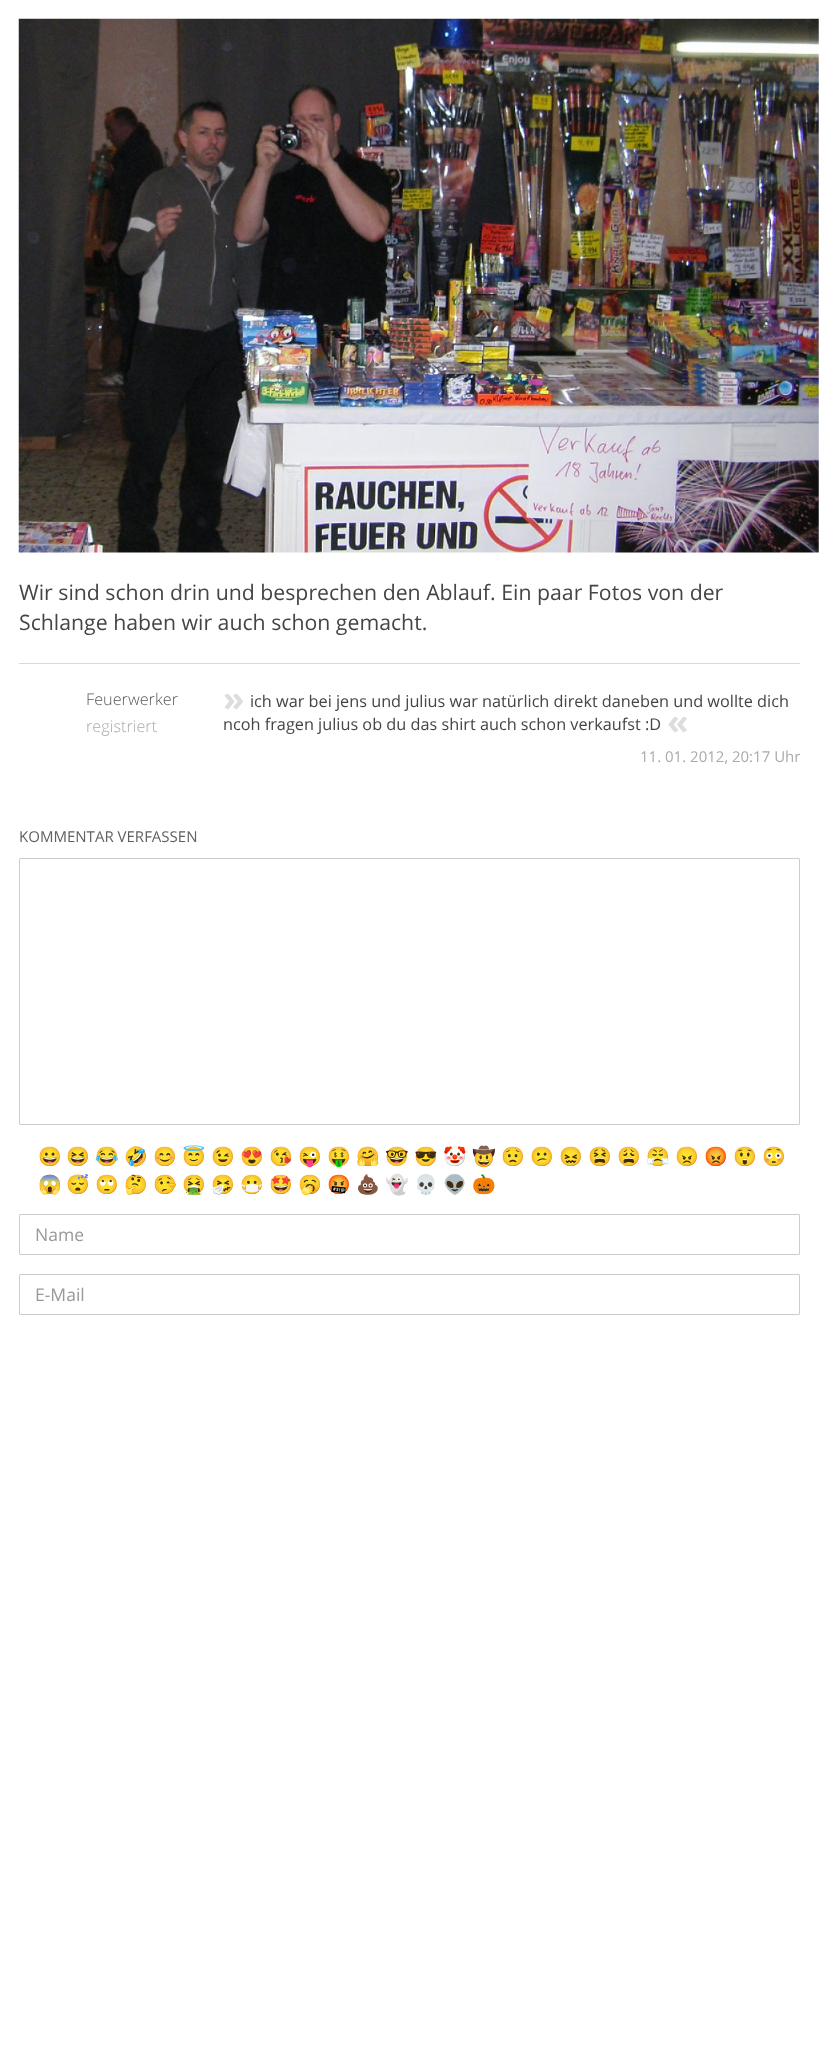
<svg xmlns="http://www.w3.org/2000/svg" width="837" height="2053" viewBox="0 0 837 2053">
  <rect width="100%" height="100%" fill="#fff"/>
  <image x="18" y="18" width="801" height="535" href="img/1.png"/>
  <path d="M19 663h781v1H19z" fill="#d9d9d9"/>
  <rect x="19.5" y="858.5" width="780" height="266" rx="0.5" fill="none" stroke="#ccc"/>
  <rect x="19.5" y="1214.5" width="780" height="40" rx="0.5" fill="none" stroke="#ccc"/>
  <rect x="19.5" y="1274.5" width="780" height="40" rx="0.5" fill="none" stroke="#ccc"/>
  <g font-family="Open Sans" font-size="21.25" fill="#454545">
    <text x="19" y="600">Wir sind schon drin und besprechen den Ablauf. Ein paar Fotos von der</text>
    <text x="19" y="630">Schlange haben wir auch schon gemacht.</text>
  </g>
  <text x="86" y="705" font-family="Open Sans" font-size="16.25" font-weight="300" fill="#565656">Feuerwerker</text>
  <text x="86" y="732" font-family="Open Sans" font-size="16.25" font-weight="300" fill="#aaa">registriert</text>
  <text x="223" y="711" font-family="Open Sans" font-size="35" font-weight="bold" fill="#ddd">»</text>
  <g font-family="Open Sans" font-size="16.25" fill="#454545">
    <text x="250" y="707">ich war bei jens und julius war natürlich direkt daneben und wollte dich</text>
    <text x="223" y="730">ncoh fragen julius ob du das shirt auch schon verkaufst :D</text>
  </g>
  <text x="667" y="734" font-family="Open Sans" font-size="35" font-weight="bold" fill="#ddd">«</text>
  <text x="640" y="762" font-family="Open Sans" font-size="15" fill="#aaa">11. 01. 2012, 20:17 Uhr</text>
  <text x="19" y="842" font-family="Open Sans" font-size="15" fill="#606060">KOMMENTAR VERFASSEN</text>
  <g font-family="Noto Color Emoji" font-size="19" font-weight="bold" fill="#454545">
    <text x="38" y="1163">😀</text>
    <text x="66" y="1163">😆</text>
    <text x="95" y="1163">😂</text>
    <text x="124" y="1163">🤣</text>
    <text x="153" y="1163">😊</text>
    <text x="182" y="1163">😇</text>
    <text x="211" y="1163">😉</text>
    <text x="240" y="1163">😍</text>
    <text x="269" y="1163">😘</text>
    <text x="298" y="1163">😜</text>
    <text x="327" y="1163">🤑</text>
    <text x="356" y="1163">🤗</text>
    <text x="385" y="1163">🤓</text>
    <text x="414" y="1163">😎</text>
    <text x="443" y="1163">🤡</text>
    <text x="472" y="1163">🤠</text>
    <text x="501" y="1163">😟</text>
    <text x="530" y="1163">😕</text>
    <text x="559" y="1163">😖</text>
    <text x="588" y="1163">😫</text>
    <text x="617" y="1163">😩</text>
    <text x="646" y="1163">😤</text>
    <text x="675" y="1163">😠</text>
    <text x="704" y="1163">😡</text>
    <text x="733" y="1163">😲</text>
    <text x="762" y="1163">😳</text>
    <text x="38" y="1191">😱</text>
    <text x="66" y="1191">😴</text>
    <text x="95" y="1191">🙄</text>
    <text x="124" y="1191">🤔</text>
    <text x="153" y="1191">🤥</text>
    <text x="182" y="1191">🤮</text>
    <text x="211" y="1191">🤧</text>
    <text x="240" y="1191">😷</text>
    <text x="269" y="1191">🤩</text>
    <text x="298" y="1191">🥱</text>
    <text x="327" y="1191">🤬</text>
    <text x="356" y="1191">💩</text>
    <text x="385" y="1191">👻</text>
    <text x="414" y="1191">💀</text>
    <text x="443" y="1191">👽</text>
    <text x="472" y="1191">🎃</text>
  </g>
  <g font-family="Open Sans" font-size="17.5" fill="#999">
    <text x="35" y="1241">Name</text>
    <text x="35" y="1301">E-Mail</text>
  </g>
</svg>
